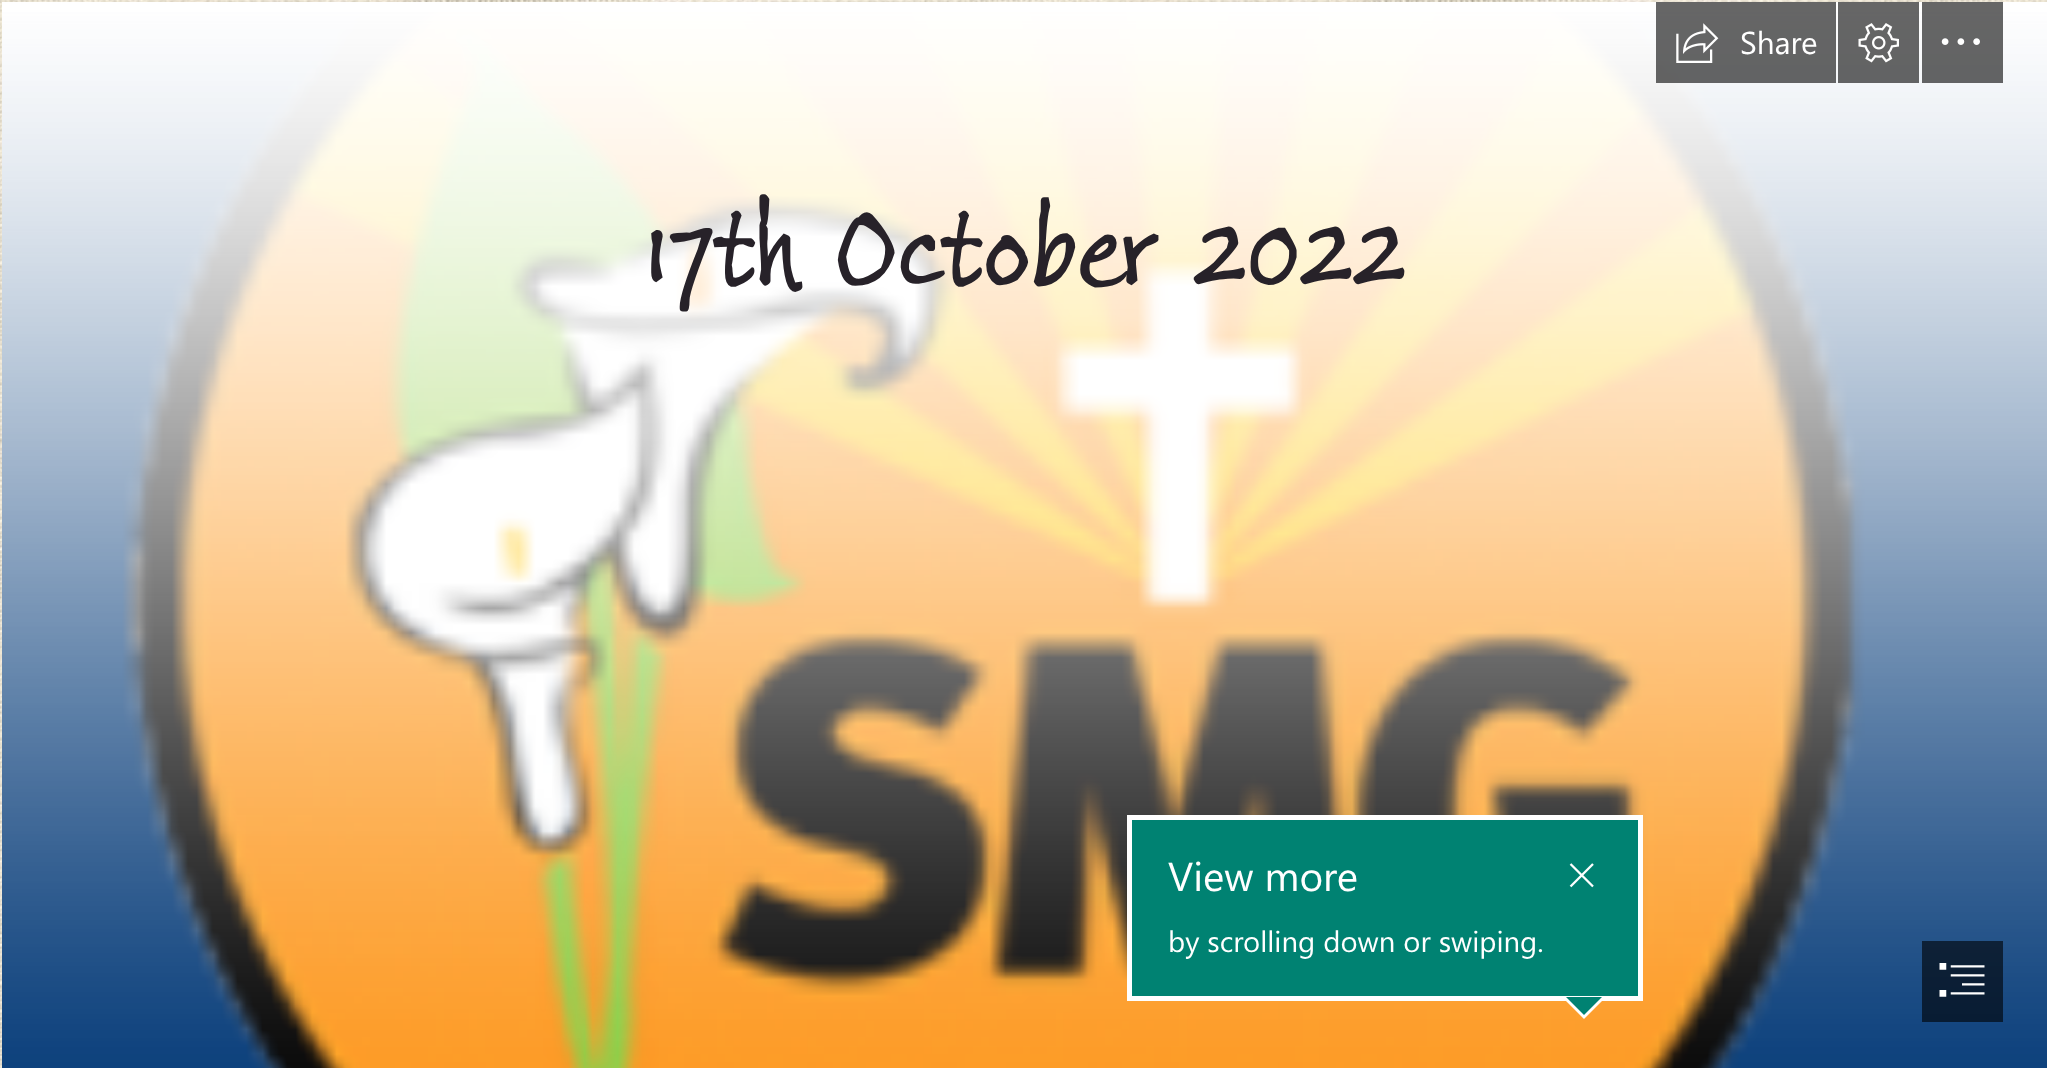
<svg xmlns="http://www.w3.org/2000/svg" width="2047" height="1068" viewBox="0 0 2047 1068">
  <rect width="100%" height="100%" fill="#fff"/>
  <image x="0" y="0" width="2047" height="1068" href="img/4.png"/>
  <image x="2" y="12" width="2045" height="1056" href="img/6.png"/>
  <image x="2" y="2" width="2045" height="1066" href="img/5.png"/>
  <path d="M1656 2h180v81H1656z" fill="#00000099"/>
  <image x="1676" y="23" width="43" height="40" href="img/1.png"/>
  <path d="M1838 2h81v81H1838z" fill="#00000099"/>
  <image x="1858" y="23" width="41" height="40" href="img/2.png"/>
  <path d="M1922 2h81v81H1922z" fill="#00000099"/>
  <image x="1941" y="38" width="39" height="7" href="img/3.png"/>
  <path d="M1129.5 817.5h511v181H1129.5z" fill="#008272" stroke="#fff" stroke-width="5"/>
  <image x="1569" y="863" width="25" height="25" href="img/7.png"/>
  <path d="M1562 997H1606L1584 1019Z" fill="#fff"/>
  <path d="M1566 997H1602L1584 1015Z" fill="#008272"/>
  <path d="M1922 941h81v81H1922z" fill="#00000099"/>
  <image x="1939" y="963" width="46" height="34" href="img/8.png"/>
  <text x="1740" y="54" font-family="Segoe UI" font-size="31.5" fill="#fff">Share</text>
  <text x="645" y="285" font-family="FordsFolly" font-size="120" fill="#272229">17th October 2022</text>
  <text x="1168" y="891" font-family="Segoe UI" font-size="40.5" fill="#fff">View more</text>
  <text x="1168" y="952" font-family="Segoe UI" font-size="29.25" fill="#fff">by scrolling down or swiping.</text>
</svg>
